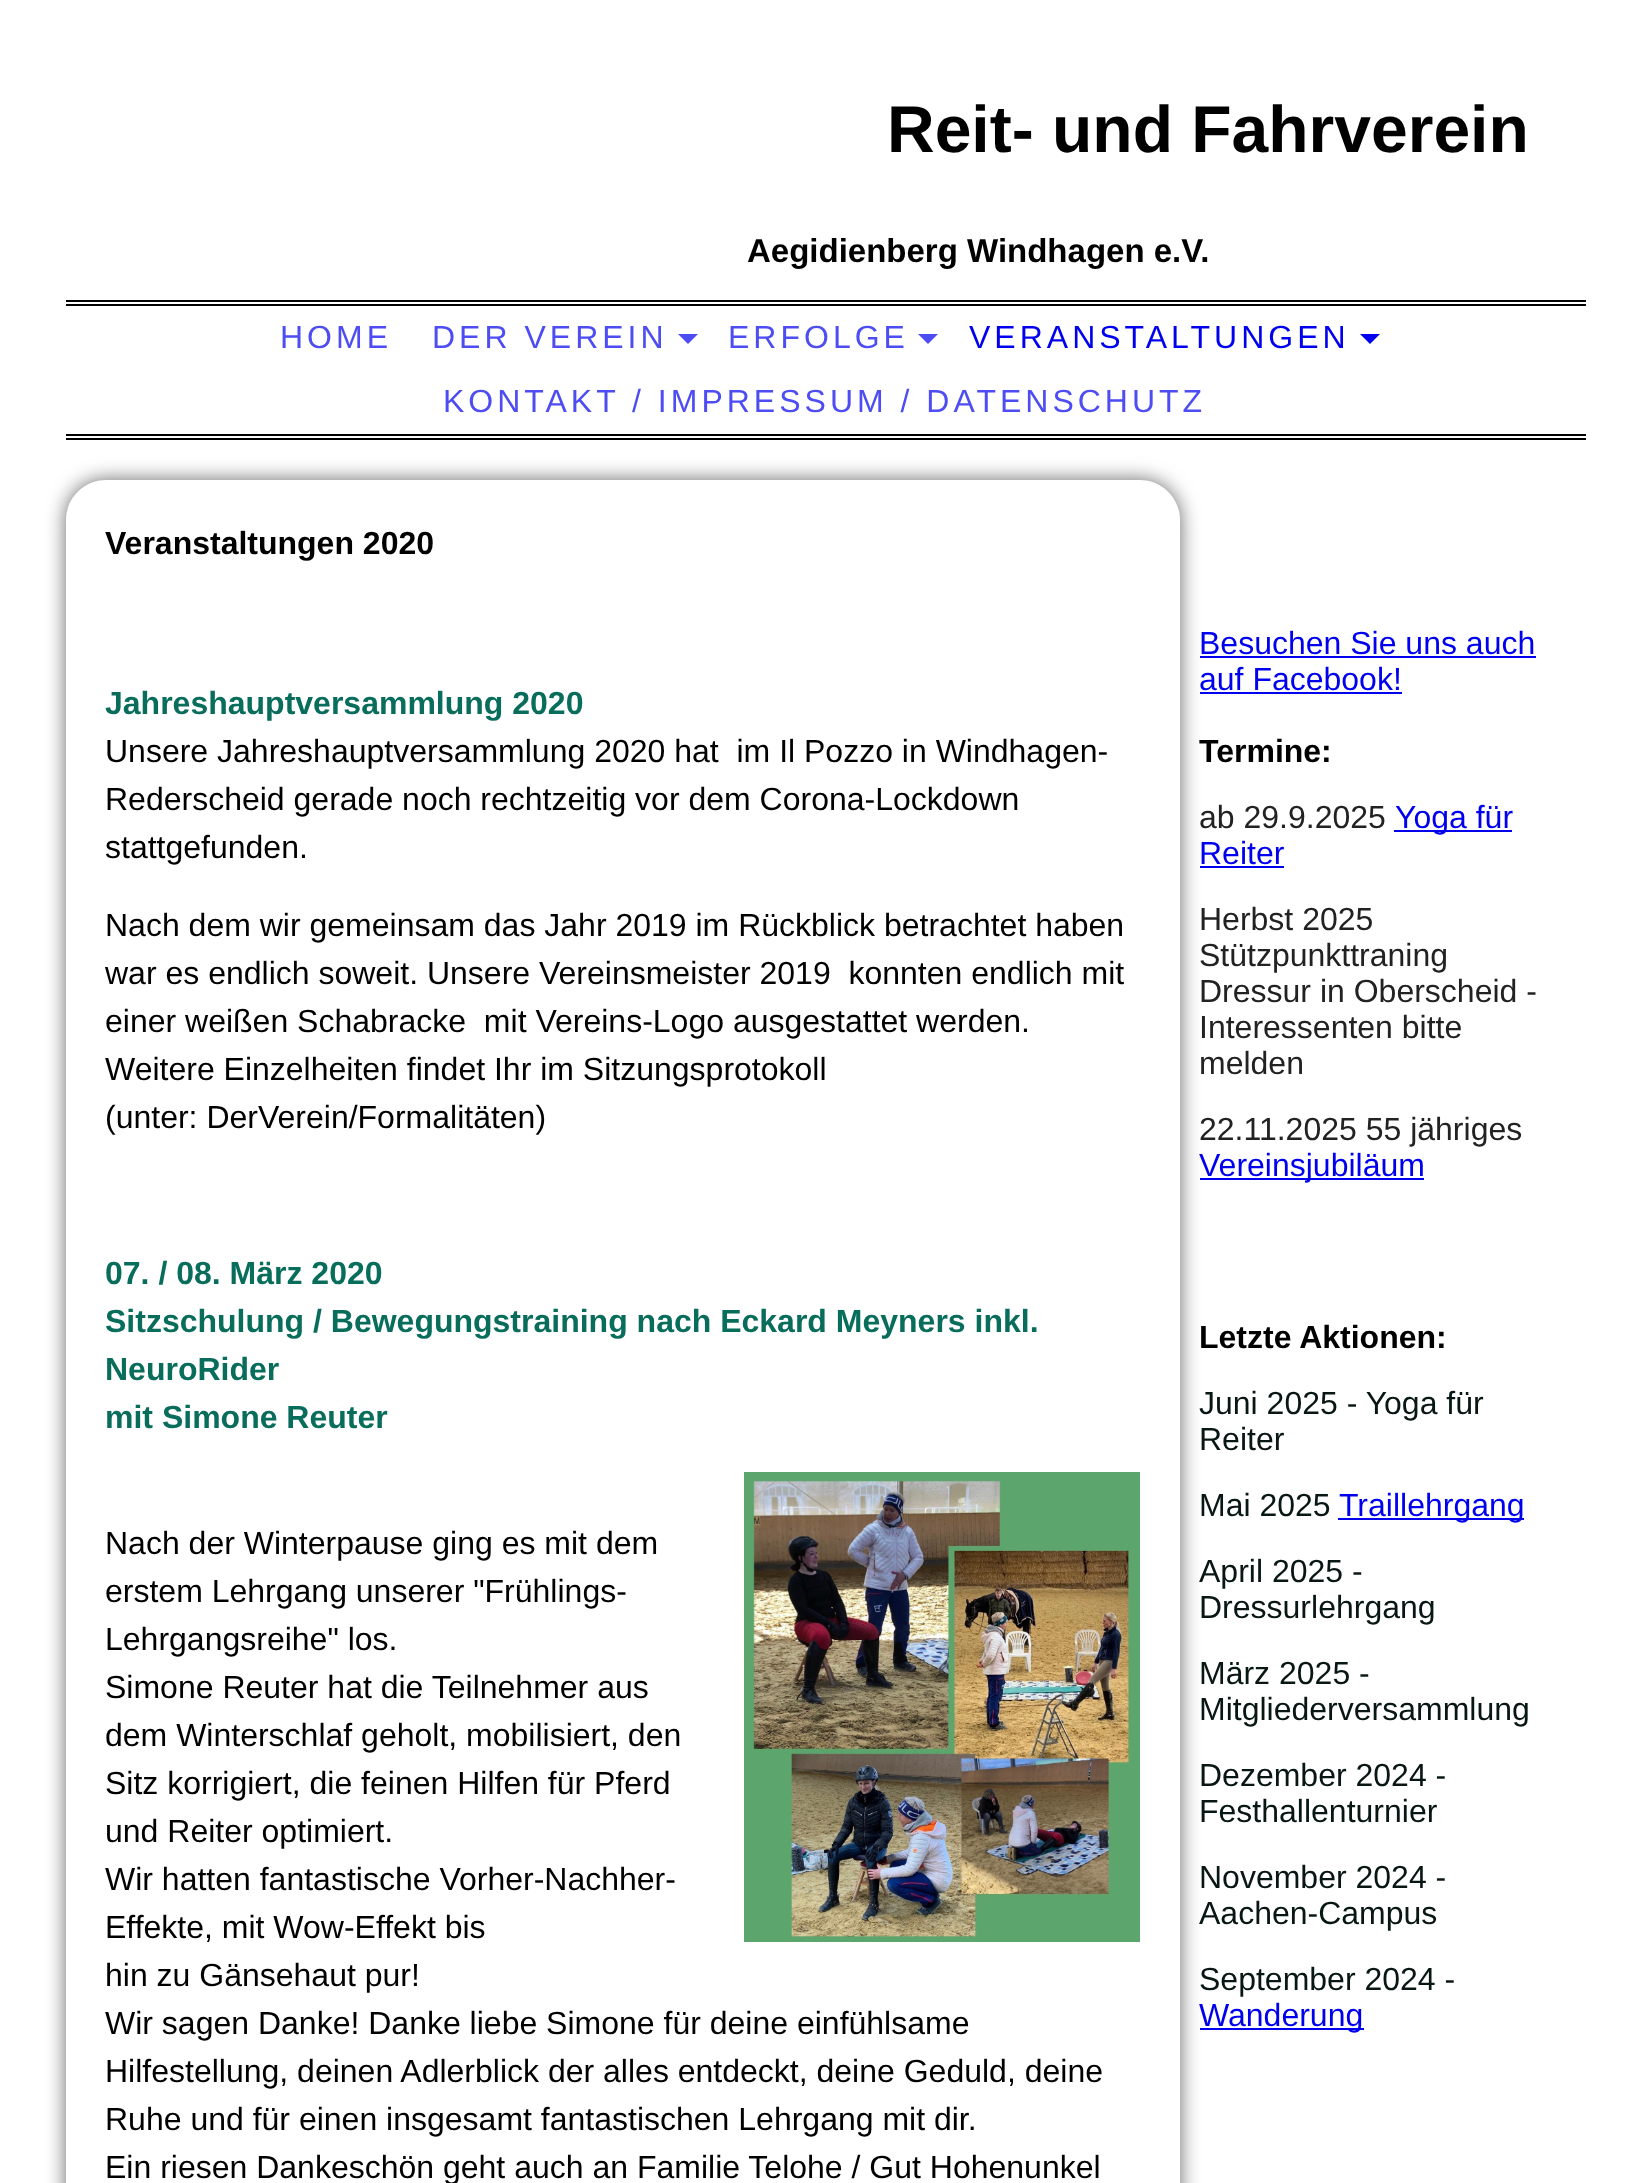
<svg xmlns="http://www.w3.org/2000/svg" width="1650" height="2183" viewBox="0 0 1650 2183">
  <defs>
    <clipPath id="clip1"><path d="M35 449H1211V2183H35ZM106 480H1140C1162 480 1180 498 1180 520V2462C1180 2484 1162 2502 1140 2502H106C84 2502 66 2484 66 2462V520C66 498 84 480 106 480Z" clip-rule="evenodd"/></clipPath>
  </defs>
  <rect width="100%" height="100%" fill="#fff"/>
  <path d="M66 300h1520v2H66z" fill="#000"/>
  <path d="M66 304h1520v2H66z" fill="#000"/>
  <path d="M66 434h1520v2H66z" fill="#000"/>
  <path d="M66 438h1520v2H66z" fill="#000"/>
  <path d="M678 334H698L688 344Z" fill="#4d4df3"/>
  <path d="M918 334H938L928 344Z" fill="#4d4df3"/>
  <path d="M1360 334H1380L1370 344Z" fill="#00e"/>
  <path d="M1200 656h336v2H1200z" fill="#00e"/>
  <path d="M1200 692h202v2H1200z" fill="#00e"/>
  <path d="M1200 866h84v2H1200z" fill="#00e"/>
  <path d="M1200 1178h224v2H1200z" fill="#00e"/>
  <path d="M1200 2028h164v2H1200z" fill="#00e"/>
  <g clip-path="url(#clip1)">
    <rect x="66" y="480" width="1114" height="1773" rx="40" fill="#666" filter="blur(10px)"/>
  </g>
  <image x="744" y="1472" width="396" height="470" href="img/1.png"/>
  <path d="M1394 830h118v2H1394z" fill="#00e"/>
  <path d="M1338 1518h186v2H1338z" fill="#00e"/>
  <text x="887" y="152" font-family="Liberation Sans" font-size="66" font-weight="bold" fill="#000">Reit- und Fahrverein</text>
  <text x="747" y="262" font-family="Liberation Sans" font-size="33" font-weight="bold" fill="#000">Aegidienberg Windhagen e.V.</text>
  <g font-family="Liberation Sans" font-size="32" letter-spacing="4" fill="#4d4df3">
    <text x="280" y="348">HOME</text>
    <text x="432" y="348">DER VEREIN</text>
    <text x="728" y="348">ERFOLGE</text>
  </g>
  <text x="969" y="348" font-family="Liberation Sans" font-size="32" letter-spacing="4" fill="#00e">VERANSTALTUNGEN</text>
  <text x="443" y="412" font-family="Liberation Sans" font-size="32" letter-spacing="4" fill="#4d4df3">KONTAKT / IMPRESSUM / DATENSCHUTZ</text>
  <text x="105" y="554" font-family="Liberation Sans" font-size="32" font-weight="bold" fill="#000">Veranstaltungen 2020</text>
  <text x="105" y="714" font-family="Liberation Sans" font-size="32" font-weight="bold" fill="#096d5c">Jahreshauptversammlung 2020</text>
  <g font-family="Liberation Sans" font-size="32" fill="#000">
    <text x="105" y="762" xml:space="preserve">Unsere Jahreshauptversammlung 2020 hat  im Il Pozzo in Windhagen-</text>
    <text x="105" y="810">Rederscheid gerade noch rechtzeitig vor dem Corona-Lockdown</text>
    <text x="105" y="858">stattgefunden.</text>
    <text x="105" y="936">Nach dem wir gemeinsam das Jahr 2019 im Rückblick betrachtet haben</text>
    <text x="105" y="984" xml:space="preserve">war es endlich soweit. Unsere Vereinsmeister 2019  konnten endlich mit</text>
    <text x="105" y="1032" xml:space="preserve">einer weißen Schabracke  mit Vereins-Logo ausgestattet werden.</text>
    <text x="105" y="1080">Weitere Einzelheiten findet Ihr im Sitzungsprotokoll</text>
    <text x="105" y="1128">(unter: DerVerein/Formalitäten)</text>
  </g>
  <g font-family="Liberation Sans" font-size="32" font-weight="bold" fill="#096d5c">
    <text x="105" y="1284">07. / 08. März 2020</text>
    <text x="105" y="1332">Sitzschulung / Bewegungstraining nach Eckard Meyners inkl.</text>
    <text x="105" y="1380">NeuroRider</text>
    <text x="105" y="1428">mit Simone Reuter</text>
  </g>
  <g font-family="Liberation Sans" font-size="32" fill="#000">
    <text x="105" y="1554">Nach der Winterpause ging es mit dem</text>
    <text x="105" y="1602">erstem Lehrgang unserer "Frühlings-</text>
    <text x="105" y="1650">Lehrgangsreihe" los.</text>
    <text x="105" y="1698">Simone Reuter hat die Teilnehmer aus</text>
    <text x="105" y="1746">dem Winterschlaf geholt, mobilisiert, den</text>
    <text x="105" y="1794">Sitz korrigiert, die feinen Hilfen für Pferd</text>
    <text x="105" y="1842">und Reiter optimiert.</text>
    <text x="105" y="1890">Wir hatten fantastische Vorher-Nachher-</text>
    <text x="105" y="1938">Effekte, mit Wow-Effekt bis</text>
    <text x="105" y="1986">hin zu Gänsehaut pur!</text>
    <text x="105" y="2034">Wir sagen Danke! Danke liebe Simone für deine einfühlsame</text>
    <text x="105" y="2082">Hilfestellung, deinen Adlerblick der alles entdeckt, deine Geduld, deine</text>
    <text x="105" y="2130">Ruhe und für einen insgesamt fantastischen Lehrgang mit dir.</text>
    <text x="105" y="2178">Ein riesen Dankeschön geht auch an Familie Telohe / Gut Hohenunkel</text>
  </g>
  <g font-family="Liberation Sans" font-size="32" fill="#00e">
    <text x="1199" y="654">Besuchen Sie uns auch</text>
    <text x="1199" y="690">auf Facebook!</text>
  </g>
  <text x="1199" y="762" font-family="Liberation Sans" font-size="32" font-weight="bold" fill="#000">Termine:</text>
  <text x="1199" y="828" font-family="Liberation Sans" font-size="32" fill="#222">ab 29.9.2025</text>
  <g font-family="Liberation Sans" font-size="32" fill="#00e">
    <text x="1395" y="828">Yoga für</text>
    <text x="1199" y="864">Reiter</text>
  </g>
  <g font-family="Liberation Sans" font-size="32" fill="#222">
    <text x="1199" y="930">Herbst 2025</text>
    <text x="1199" y="966">Stützpunkttraning</text>
    <text x="1199" y="1002">Dressur in Oberscheid -</text>
    <text x="1199" y="1038">Interessenten bitte</text>
    <text x="1199" y="1074">melden</text>
    <text x="1199" y="1140">22.11.2025 55 jähriges</text>
  </g>
  <text x="1199" y="1176" font-family="Liberation Sans" font-size="32" fill="#00e">Vereinsjubiläum</text>
  <text x="1199" y="1348" font-family="Liberation Sans" font-size="32" font-weight="bold" fill="#000">Letzte Aktionen:</text>
  <g font-family="Liberation Sans" font-size="32" fill="#081614">
    <text x="1199" y="1414">Juni 2025 - Yoga für</text>
    <text x="1199" y="1450">Reiter</text>
    <text x="1199" y="1516">Mai 2025</text>
  </g>
  <text x="1339" y="1516" font-family="Liberation Sans" font-size="32" fill="#00e">Traillehrgang</text>
  <g font-family="Liberation Sans" font-size="32" fill="#081614">
    <text x="1199" y="1582">April 2025 -</text>
    <text x="1199" y="1618">Dressurlehrgang</text>
    <text x="1199" y="1684">März 2025 -</text>
    <text x="1199" y="1720">Mitgliederversammlung</text>
    <text x="1199" y="1786">Dezember 2024 -</text>
    <text x="1199" y="1822">Festhallenturnier</text>
    <text x="1199" y="1888">November 2024 -</text>
    <text x="1199" y="1924">Aachen-Campus</text>
    <text x="1199" y="1990">September 2024 -</text>
  </g>
  <text x="1199" y="2026" font-family="Liberation Sans" font-size="32" fill="#00e">Wanderung</text>
</svg>
